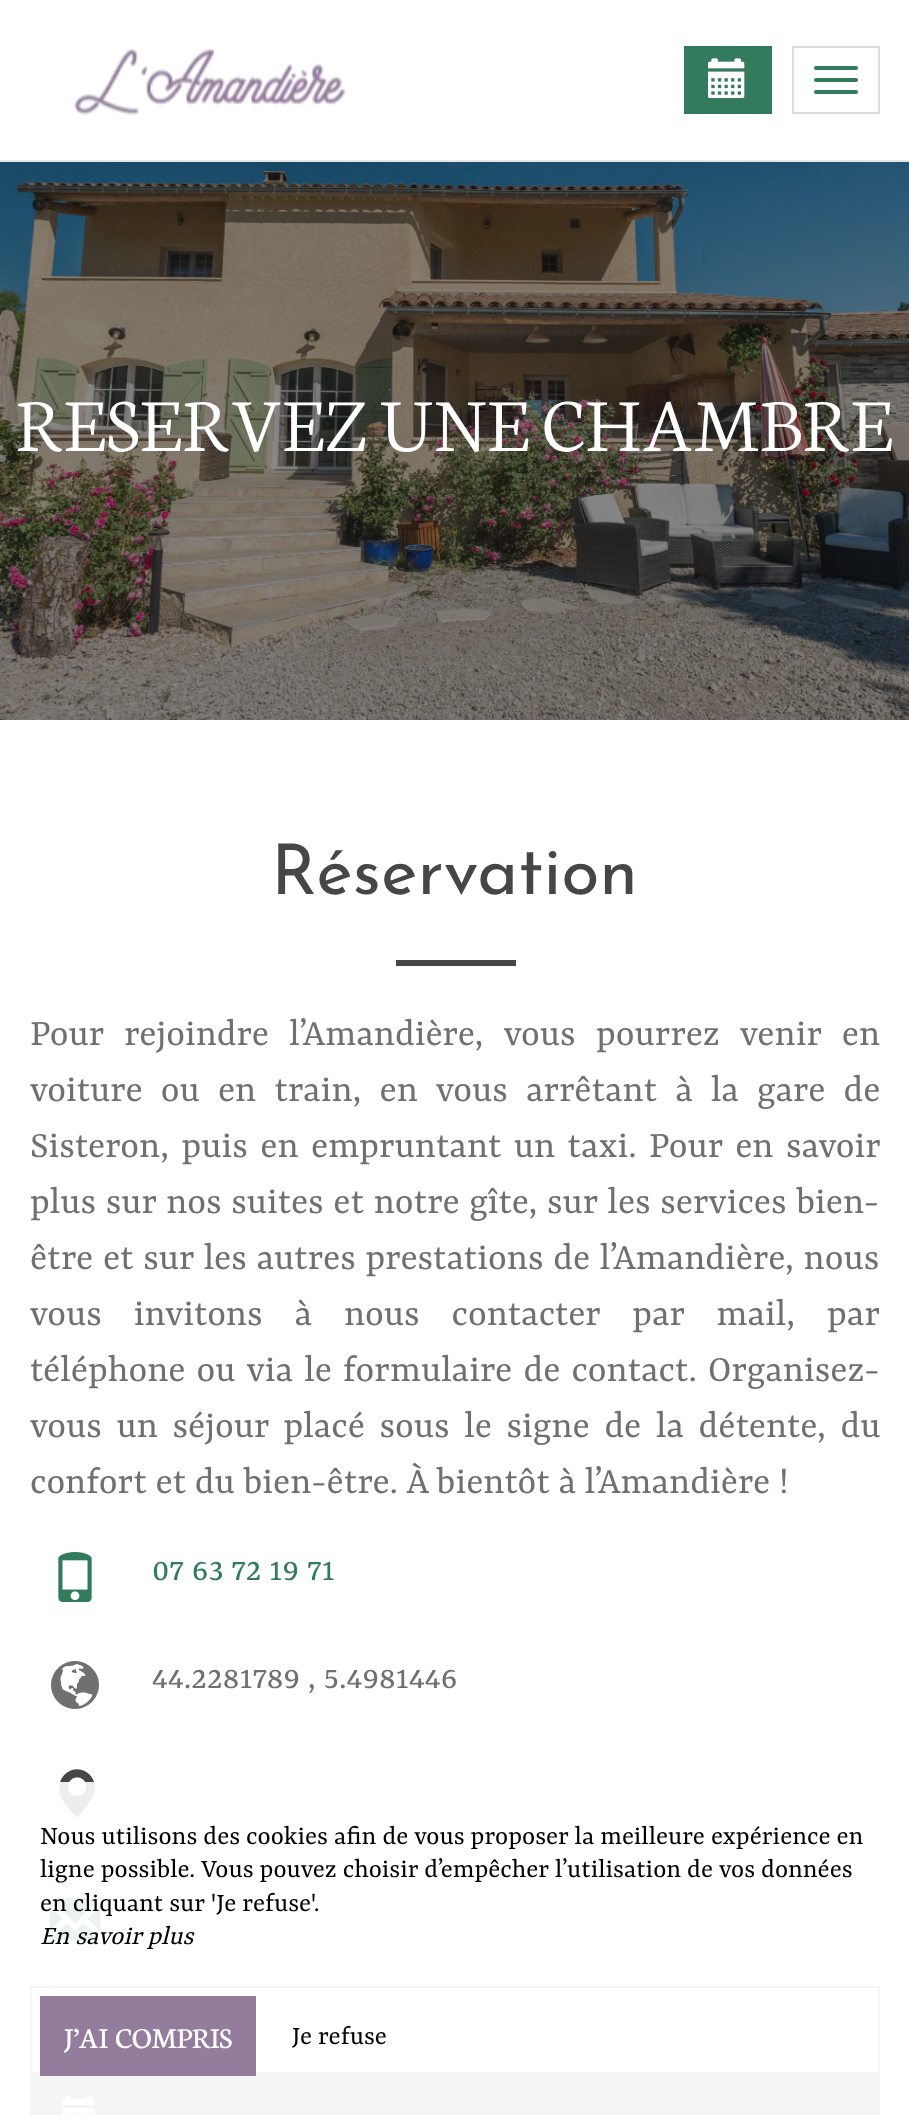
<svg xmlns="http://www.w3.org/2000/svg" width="909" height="2115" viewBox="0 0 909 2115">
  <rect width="100%" height="100%" fill="#fff"/>
  <path d="M0 160h909v2H0z" fill="#e6e6e6"/>
  <image x="74" y="49" width="272" height="66" href="img/1.png"/>
  <path d="M684 46h88v68H684z" fill="#347b5d"/>
  <image x="708" y="58" width="37" height="40" href="img/2.png"/>
  <path d="M793 47h86v66H793z" fill="none" stroke="#ddd" stroke-width="2"/>
  <rect x="814" y="66" width="44" height="4" rx="2" fill="#347b5d"/>
  <rect x="814" y="78" width="44" height="4" rx="2" fill="#347b5d"/>
  <rect x="814" y="90" width="44" height="4" rx="2" fill="#347b5d"/>
  <image x="0" y="162" width="909" height="558" href="img/3.png"/>
  <path d="M396 960h120v6H396z" fill="#464646"/>
  <image x="58" y="1552" width="34" height="50" href="img/4.png"/>
  <image x="51" y="1661" width="48" height="48" href="img/5.png"/>
  <image x="59" y="1769" width="36" height="49" href="img/6.png"/>
  <image x="50" y="1898" width="50" height="42" href="img/7.png"/>
  <path d="M31 1987h848v86H31z" fill="none" stroke="#979499" stroke-width="2"/>
  <path d="M30 2074h850v41H30z" fill="#979499"/>
  <image x="62" y="2096" width="33" height="19" href="img/8.png"/>
  <path d="M30 1782h850v333H30z" fill="#ffffffe6"/>
  <path d="M40 1996h216v80H40z" fill="#947c9d"/>
  <text x="16" y="451" font-family="Neuton" font-size="80" font-weight="300" fill="#fff">RESERVEZ UNE CHAMBRE</text>
  <text x="271" y="894" font-family="Josefin Sans" font-size="70" fill="#464646">Réservation</text>
  <g font-family="Yrsa" font-size="40" fill="#707070">
    <text x="30" y="1045" word-spacing="11.75">Pour rejoindre l’Amandière, vous pourrez venir en</text>
    <text x="30" y="1101" word-spacing="9.5">voiture ou en train, en vous arrêtant à la gare de</text>
    <text x="30" y="1157" word-spacing="3.75">Sisteron, puis en empruntant un taxi. Pour en savoir</text>
    <text x="30" y="1213" word-spacing="1">plus sur nos suites et notre gîte, sur les services bien-</text>
    <text x="30" y="1269" word-spacing="1">être et sur les autres prestations de l’Amandière, nous</text>
    <text x="30" y="1325" word-spacing="23.25">vous invitons à nous contacter par mail, par</text>
    <text x="30" y="1381" word-spacing="2.5">téléphone ou via le formulaire de contact. Organisez-</text>
    <text x="30" y="1437" word-spacing="6">vous un séjour placé sous le signe de la détente, du</text>
    <text x="30" y="1493">confort et du bien-être. À bientôt à l’Amandière !</text>
  </g>
  <text x="152" y="1580" font-family="Yrsa" font-size="36" fill="#347b5d">07 63 72 19 71</text>
  <text x="152" y="1688" font-family="Yrsa" font-size="36" fill="#707070">44.2281789 , 5.4981446</text>
  <g font-family="Yrsa" font-size="28" fill="#000">
    <text x="40" y="1844">Nous utilisons des cookies afin de vous proposer la meilleure expérience en</text>
    <text x="40" y="1877">ligne possible. Vous pouvez choisir d’empêcher l’utilisation de vos données</text>
    <text x="40" y="1911">en cliquant sur 'Je refuse'.</text>
  </g>
  <text x="40" y="1944" font-family="Yrsa" font-size="28" font-style="italic" fill="#000">En savoir plus</text>
  <text x="64" y="2048" word-spacing="3" font-family="Neuton" font-size="30.75" fill="#fff">J’AI COMPRIS</text>
  <text x="292" y="2044" font-family="Yrsa" font-size="28" fill="#000">Je refuse</text>
</svg>
